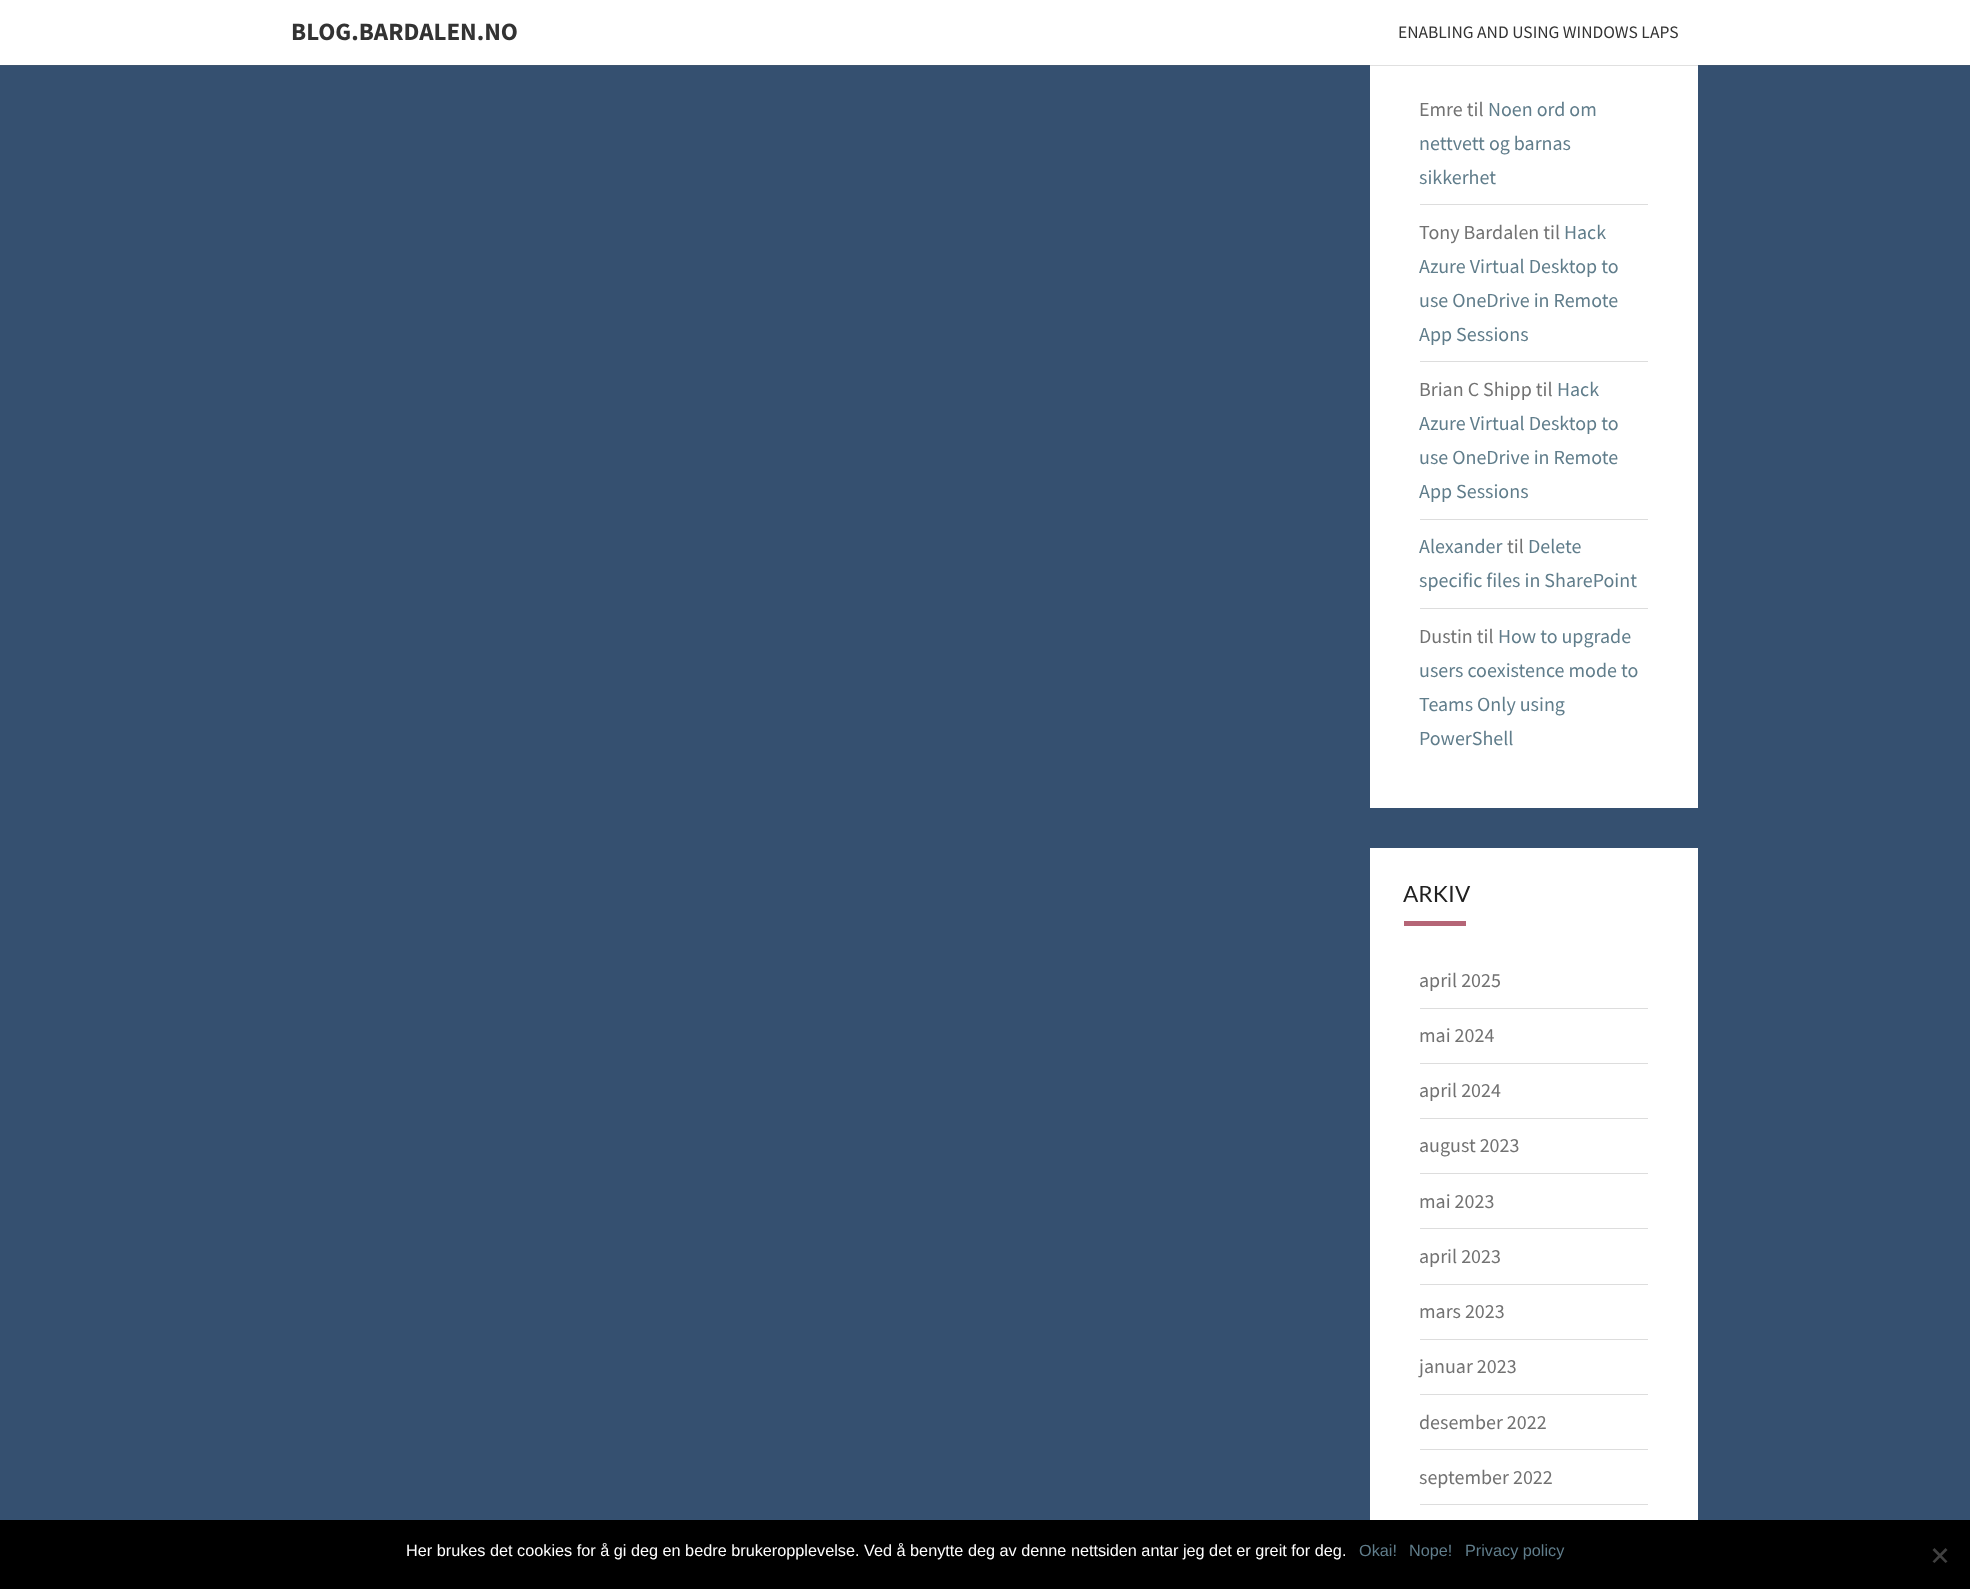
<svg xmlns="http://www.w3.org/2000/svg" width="1970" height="1589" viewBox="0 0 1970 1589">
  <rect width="100%" height="100%" fill="#355070"/>
  <path d="M1370 65h328v743H1370z" fill="#fff"/>
  <path d="M0 1h1970v65H0z" fill="#64646433" filter="blur(0.5px)"/>
  <path d="M0 0h1970v65H0z" fill="#fff"/>
  <path d="M1420 204h228v1H1420z" fill="#ddd"/>
  <path d="M1420 361h228v1H1420z" fill="#ddd"/>
  <path d="M1420 519h228v1H1420z" fill="#ddd"/>
  <path d="M1420 608h228v1H1420z" fill="#ddd"/>
  <path d="M1370 848h328v672H1370z" fill="#fff"/>
  <path d="M1404 921h62v5H1404z" fill="#b56576"/>
  <path d="M1420 1008h228v1H1420z" fill="#ddd"/>
  <path d="M1420 1063h228v1H1420z" fill="#ddd"/>
  <path d="M1420 1118h228v1H1420z" fill="#ddd"/>
  <path d="M1420 1173h228v1H1420z" fill="#ddd"/>
  <path d="M1420 1228h228v1H1420z" fill="#ddd"/>
  <path d="M1420 1284h228v1H1420z" fill="#ddd"/>
  <path d="M1420 1339h228v1H1420z" fill="#ddd"/>
  <path d="M1420 1394h228v1H1420z" fill="#ddd"/>
  <path d="M1420 1449h228v1H1420z" fill="#ddd"/>
  <path d="M1420 1504h228v1H1420z" fill="#ddd"/>
  <path d="M0 1520h1970v69H0z" fill="#000"/>
  <path d="M1945.5 1548L1947.5 1550L1934.5 1563L1932.5 1561.5Z" fill="#404040"/>
  <path d="M1932.5 1550L1934.5 1548L1947.5 1561.5L1945.5 1563Z" fill="#404040"/>
  <text x="291" y="40" font-family="Source Sans Pro" font-size="25" font-weight="bold" fill="#333">BLOG.BARDALEN.NO</text>
  <text x="1398" y="38" font-family="Source Sans Pro" font-size="17.5" fill="#333">ENABLING AND USING WINDOWS LAPS</text>
  <text x="1419" y="116" font-family="Source Sans Pro" font-size="20" fill="#727272">Emre til</text>
  <g font-family="Source Sans Pro" font-size="20" fill="#607d8b">
    <text x="1488" y="116">Noen ord om</text>
    <text x="1419" y="150">nettvett og barnas</text>
    <text x="1419" y="184">sikkerhet</text>
  </g>
  <text x="1419" y="239" font-family="Source Sans Pro" font-size="20" fill="#727272">Tony Bardalen til</text>
  <g font-family="Source Sans Pro" font-size="20" fill="#607d8b">
    <text x="1564" y="239">Hack</text>
    <text x="1419" y="273">Azure Virtual Desktop to</text>
    <text x="1419" y="307">use OneDrive in Remote</text>
    <text x="1419" y="341">App Sessions</text>
  </g>
  <text x="1419" y="396" font-family="Source Sans Pro" font-size="20" fill="#727272">Brian C Shipp til</text>
  <g font-family="Source Sans Pro" font-size="20" fill="#607d8b">
    <text x="1557" y="396">Hack</text>
    <text x="1419" y="430">Azure Virtual Desktop to</text>
    <text x="1419" y="464">use OneDrive in Remote</text>
    <text x="1419" y="498">App Sessions</text>
    <text x="1419" y="553">Alexander</text>
  </g>
  <text x="1507" y="553" font-family="Source Sans Pro" font-size="20" fill="#727272">til</text>
  <g font-family="Source Sans Pro" font-size="20" fill="#607d8b">
    <text x="1528" y="553">Delete</text>
    <text x="1419" y="587">specific files in SharePoint</text>
  </g>
  <text x="1419" y="643" font-family="Source Sans Pro" font-size="20" fill="#727272">Dustin til</text>
  <g font-family="Source Sans Pro" font-size="20" fill="#607d8b">
    <text x="1498" y="643">How to upgrade</text>
    <text x="1419" y="677">users coexistence mode to</text>
    <text x="1419" y="711">Teams Only using</text>
    <text x="1419" y="745">PowerShell</text>
  </g>
  <text x="1403" y="902" font-family="Lato" font-size="22.5" fill="#212121">ARKIV</text>
  <g font-family="Source Sans Pro" font-size="20" fill="#727272">
    <text x="1419" y="987">april 2025</text>
    <text x="1419" y="1042">mai 2024</text>
    <text x="1419" y="1097">april 2024</text>
    <text x="1419" y="1152">august 2023</text>
    <text x="1419" y="1208">mai 2023</text>
    <text x="1419" y="1263">april 2023</text>
    <text x="1419" y="1318">mars 2023</text>
    <text x="1419" y="1373">januar 2023</text>
    <text x="1419" y="1429">desember 2022</text>
    <text x="1419" y="1484">september 2022</text>
  </g>
  <text x="406" y="1556" font-family="Liberation Sans" font-size="16.25" fill="#fff">Her brukes det cookies for å gi deg en bedre brukeropplevelse. Ved å benytte deg av denne nettsiden antar jeg det er greit for deg.</text>
  <g font-family="Liberation Sans" font-size="16.25" fill="#607d8b">
    <text x="1359" y="1556">Okai!</text>
    <text x="1409" y="1556">Nope!</text>
    <text x="1465" y="1556">Privacy policy</text>
  </g>
</svg>
